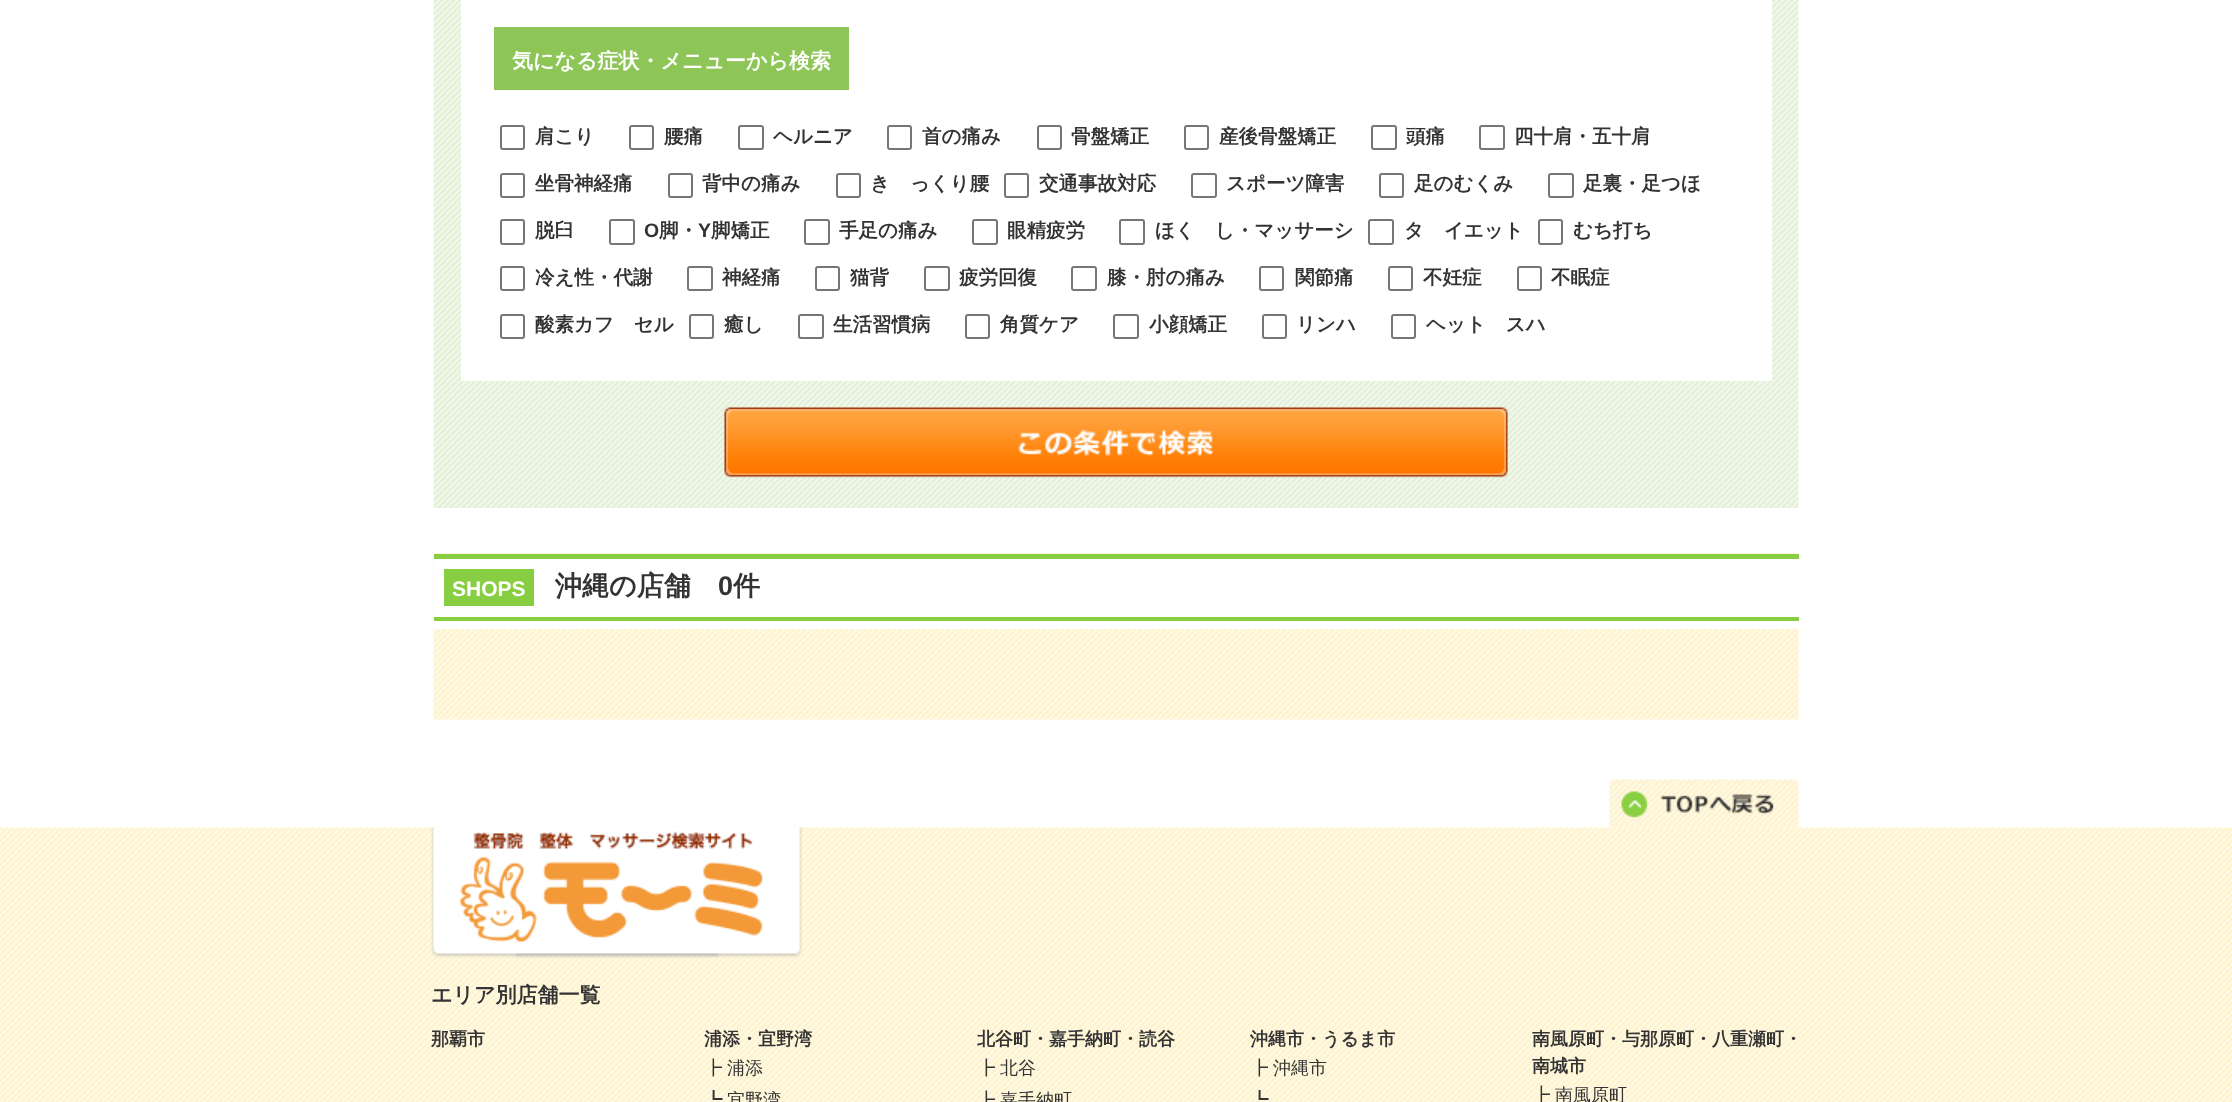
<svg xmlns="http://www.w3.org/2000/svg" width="2232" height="1102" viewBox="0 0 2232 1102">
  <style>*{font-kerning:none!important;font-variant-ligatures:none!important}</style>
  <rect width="100%" height="100%" fill="#fff"/>
  <image x="433" y="0" width="1366" height="508" href="img/1.png"/>
  <path d="M461 0h1311v381H461z" fill="#fff"/>
  <path d="M494 27h355v63H494z" fill="#8dc556"/>
  <rect x="501" y="126" width="23" height="23" rx="2" fill="none" stroke="#767676" stroke-width="2"/>
  <rect x="630" y="126" width="23" height="23" rx="2" fill="none" stroke="#767676" stroke-width="2"/>
  <rect x="739" y="126" width="24" height="23" rx="2" fill="none" stroke="#767676" stroke-width="2"/>
  <rect x="888" y="126" width="23" height="23" rx="2" fill="none" stroke="#767676" stroke-width="2"/>
  <rect x="1038" y="126" width="23" height="23" rx="2" fill="none" stroke="#767676" stroke-width="2"/>
  <rect x="1185" y="126" width="23" height="23" rx="2" fill="none" stroke="#767676" stroke-width="2"/>
  <rect x="1372" y="126" width="24" height="23" rx="2" fill="none" stroke="#767676" stroke-width="2"/>
  <rect x="1480" y="126" width="24" height="23" rx="2" fill="none" stroke="#767676" stroke-width="2"/>
  <rect x="501" y="174" width="23" height="23" rx="2" fill="none" stroke="#767676" stroke-width="2"/>
  <rect x="669" y="174" width="23" height="23" rx="2" fill="none" stroke="#767676" stroke-width="2"/>
  <rect x="837" y="174" width="23" height="23" rx="2" fill="none" stroke="#767676" stroke-width="2"/>
  <rect x="1005" y="174" width="23" height="23" rx="2" fill="none" stroke="#767676" stroke-width="2"/>
  <rect x="1192" y="174" width="24" height="23" rx="2" fill="none" stroke="#767676" stroke-width="2"/>
  <rect x="1380" y="174" width="23" height="23" rx="2" fill="none" stroke="#767676" stroke-width="2"/>
  <rect x="1549" y="174" width="24" height="23" rx="2" fill="none" stroke="#767676" stroke-width="2"/>
  <rect x="501" y="220" width="23" height="24" rx="2" fill="none" stroke="#767676" stroke-width="2"/>
  <rect x="610" y="220" width="24" height="24" rx="2" fill="none" stroke="#767676" stroke-width="2"/>
  <rect x="805" y="220" width="24" height="24" rx="2" fill="none" stroke="#767676" stroke-width="2"/>
  <rect x="973" y="220" width="24" height="24" rx="2" fill="none" stroke="#767676" stroke-width="2"/>
  <rect x="1120" y="220" width="24" height="24" rx="2" fill="none" stroke="#767676" stroke-width="2"/>
  <rect x="1369" y="220" width="24" height="24" rx="2" fill="none" stroke="#767676" stroke-width="2"/>
  <rect x="1539" y="220" width="23" height="24" rx="2" fill="none" stroke="#767676" stroke-width="2"/>
  <rect x="501" y="267" width="23" height="23" rx="2" fill="none" stroke="#767676" stroke-width="2"/>
  <rect x="688" y="267" width="24" height="23" rx="2" fill="none" stroke="#767676" stroke-width="2"/>
  <rect x="816" y="267" width="23" height="23" rx="2" fill="none" stroke="#767676" stroke-width="2"/>
  <rect x="925" y="267" width="24" height="23" rx="2" fill="none" stroke="#767676" stroke-width="2"/>
  <rect x="1072" y="267" width="24" height="23" rx="2" fill="none" stroke="#767676" stroke-width="2"/>
  <rect x="1260" y="267" width="23" height="23" rx="2" fill="none" stroke="#767676" stroke-width="2"/>
  <rect x="1389" y="267" width="23" height="23" rx="2" fill="none" stroke="#767676" stroke-width="2"/>
  <rect x="1518" y="267" width="23" height="23" rx="2" fill="none" stroke="#767676" stroke-width="2"/>
  <rect x="501" y="315" width="23" height="23" rx="2" fill="none" stroke="#767676" stroke-width="2"/>
  <rect x="690" y="315" width="23" height="23" rx="2" fill="none" stroke="#767676" stroke-width="2"/>
  <rect x="799" y="315" width="24" height="23" rx="2" fill="none" stroke="#767676" stroke-width="2"/>
  <rect x="966" y="315" width="23" height="23" rx="2" fill="none" stroke="#767676" stroke-width="2"/>
  <rect x="1114" y="315" width="24" height="23" rx="2" fill="none" stroke="#767676" stroke-width="2"/>
  <rect x="1263" y="315" width="23" height="23" rx="2" fill="none" stroke="#767676" stroke-width="2"/>
  <rect x="1392" y="315" width="23" height="23" rx="2" fill="none" stroke="#767676" stroke-width="2"/>
  <image x="724" y="407" width="784" height="71" href="img/2.png"/>
  <image x="433" y="553" width="1366" height="167" href="img/3.png"/>
  <path d="M434 559h1365v58H434z" fill="#fff"/>
  <path d="M434 554h1365v5H434z" fill="#88ce43"/>
  <path d="M434 617h1365v4H434z" fill="#88ce43"/>
  <path d="M444 569h90v37H444z" fill="#88ce43"/>
  <path d="M434 621h1365v8H434z" fill="#fff"/>
  <image x="0" y="827" width="2232" height="275" href="img/5.png"/>
  <image x="1609" y="779" width="190" height="49" href="img/4.png"/>
  <image x="431" y="827" width="372" height="131" href="img/6.png"/>
  <text x="512" y="68" font-family="WenQuanYi Zen Hei" font-size="21" font-weight="bold" fill="#fff">気になる症状・メニューから検索</text>
  <g font-family="WenQuanYi Zen Hei" font-size="19.5" font-weight="bold" fill="#333">
    <text x="535" y="143">肩こり</text>
    <text x="664" y="143">腰痛</text>
    <text x="773" y="143">ヘルニア</text>
    <text x="922" y="143">首の痛み</text>
    <text x="1071" y="143">骨盤矯正</text>
    <text x="1219" y="143">産後骨盤矯正</text>
    <text x="1406" y="143">頭痛</text>
    <text x="1514" y="143">四十肩・五十肩</text>
    <text x="535" y="190">坐骨神経痛</text>
    <text x="702" y="190">背中の痛み</text>
    <text x="870" y="190">ぎっくり腰</text>
    <text x="1039" y="190">交通事故対応</text>
    <text x="1226" y="190">スポーツ障害</text>
    <text x="1414" y="190">足のむくみ</text>
    <text x="1583" y="190">足裏・足つぼ</text>
    <text x="535" y="237">脱臼</text>
  </g>
  <text x="644" y="237" font-family="Liberation Sans" font-size="19.5" font-weight="bold" fill="#333">O</text>
  <text x="659" y="237" font-family="WenQuanYi Zen Hei" font-size="19.5" font-weight="bold" fill="#333">脚・</text>
  <text x="698" y="237" font-family="Liberation Sans" font-size="19.5" font-weight="bold" fill="#333">Y</text>
  <g font-family="WenQuanYi Zen Hei" font-size="19.5" font-weight="bold" fill="#333">
    <text x="711" y="237">脚矯正</text>
    <text x="839" y="237">手足の痛み</text>
    <text x="1007" y="237">眼精疲労</text>
    <text x="1155" y="237">ほぐし・マッサージ</text>
    <text x="1404" y="237">ダイエット</text>
    <text x="1573" y="237">むち打ち</text>
    <text x="535" y="284">冷え性・代謝</text>
    <text x="722" y="284">神経痛</text>
    <text x="850" y="284">猫背</text>
    <text x="959" y="284">疲労回復</text>
    <text x="1107" y="284">膝・肘の痛み</text>
    <text x="1295" y="284">関節痛</text>
    <text x="1423" y="284">不妊症</text>
    <text x="1551" y="284">不眠症</text>
    <text x="535" y="331">酸素カプセル</text>
    <text x="724" y="331">癒し</text>
    <text x="833" y="331">生活習慣病</text>
    <text x="1000" y="331">角質ケア</text>
    <text x="1149" y="331">小顔矯正</text>
    <text x="1296" y="331">リンパ</text>
    <text x="1426" y="331">ヘッドスパ</text>
  </g>
  <text x="452" y="596" font-family="Liberation Sans" font-size="21" font-weight="bold" fill="#fff">SHOPS</text>
  <text x="555" y="595" font-family="WenQuanYi Zen Hei" font-size="27" font-weight="bold" fill="#333">沖縄の店舗</text>
  <text x="718" y="595" font-family="Liberation Sans" font-size="27" font-weight="bold" fill="#333">0</text>
  <text x="733" y="595" font-family="WenQuanYi Zen Hei" font-size="27" font-weight="bold" fill="#333">件</text>
  <text x="431" y="1002" font-family="WenQuanYi Zen Hei" font-size="21" font-weight="bold" fill="#333">エリア別店舗一覧</text>
  <g font-family="WenQuanYi Zen Hei" font-size="18" font-weight="bold" fill="#333">
    <text x="431" y="1045">那覇市</text>
    <text x="704" y="1045">浦添・宜野湾</text>
  </g>
  <g font-family="WenQuanYi Zen Hei" font-size="18" font-weight="500" fill="#333">
    <text x="704" y="1074">┣</text>
    <text x="727" y="1074">浦添</text>
  </g>
  <text x="704" y="1106" font-family="WenQuanYi Zen Hei" font-size="18" font-weight="bold" fill="#333">┗</text>
  <text x="727" y="1106" font-family="WenQuanYi Zen Hei" font-size="18" font-weight="500" fill="#333">宜野湾</text>
  <text x="977" y="1045" font-family="WenQuanYi Zen Hei" font-size="18" font-weight="bold" fill="#333">北谷町・嘉手納町・読谷</text>
  <g font-family="WenQuanYi Zen Hei" font-size="18" font-weight="500" fill="#333">
    <text x="977" y="1074">┣</text>
    <text x="1000" y="1074">北谷</text>
    <text x="977" y="1106">┣</text>
    <text x="1000" y="1106">嘉手納町</text>
  </g>
  <text x="1250" y="1045" font-family="WenQuanYi Zen Hei" font-size="18" font-weight="bold" fill="#333">沖縄市・うるま市</text>
  <g font-family="WenQuanYi Zen Hei" font-size="18" font-weight="500" fill="#333">
    <text x="1250" y="1074">┣</text>
    <text x="1273" y="1074">沖縄市</text>
  </g>
  <g font-family="WenQuanYi Zen Hei" font-size="18" font-weight="bold" fill="#333">
    <text x="1250" y="1106">┗</text>
    <text x="1532" y="1045">南風原町・与那原町・八重瀬町・</text>
    <text x="1532" y="1072">南城市</text>
  </g>
  <g font-family="WenQuanYi Zen Hei" font-size="18" font-weight="500" fill="#333">
    <text x="1532" y="1101">┣</text>
    <text x="1555" y="1101">南風原町</text>
  </g>
</svg>
